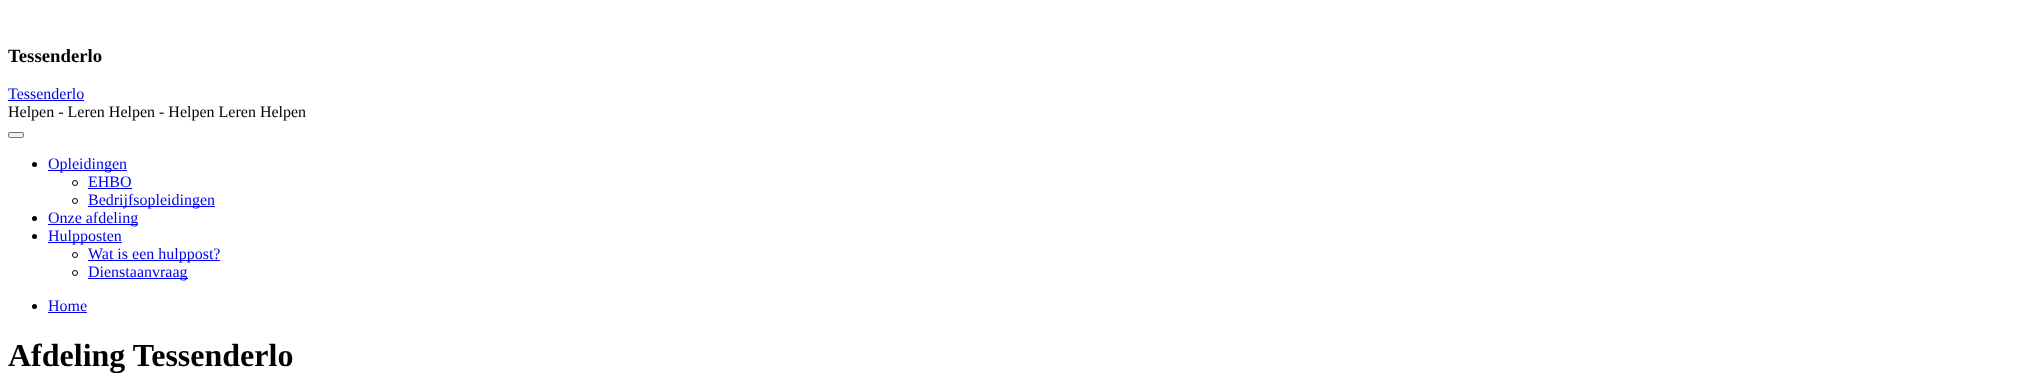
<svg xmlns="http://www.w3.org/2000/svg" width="2019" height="373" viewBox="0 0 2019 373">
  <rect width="100%" height="100%" fill="#fff"/>
  <path d="M8 100h76v1H8z" fill="#00e"/>
  <rect x="8.5" y="132.5" width="15" height="5" rx="1.5" fill="#efefef" stroke="#767676"/>
  <circle cx="34.5" cy="164.5" r="2.5" fill="#000"/>
  <path d="M48 170h79v1H48z" fill="#00e"/>
  <circle cx="75" cy="183" r="2.5" fill="none" stroke="#000"/>
  <path d="M88 188h44v1H88z" fill="#00e"/>
  <circle cx="75" cy="201" r="2.5" fill="none" stroke="#000"/>
  <path d="M88 206h127v1H88z" fill="#00e"/>
  <circle cx="34.5" cy="218.5" r="2.5" fill="#000"/>
  <path d="M48 224h90v1H48z" fill="#00e"/>
  <circle cx="34.5" cy="236.5" r="2.5" fill="#000"/>
  <path d="M48 242h74v1H48z" fill="#00e"/>
  <circle cx="75" cy="255" r="2.5" fill="none" stroke="#000"/>
  <path d="M88 260h132v1H88z" fill="#00e"/>
  <circle cx="75" cy="273" r="2.5" fill="none" stroke="#000"/>
  <path d="M88 278h100v1H88z" fill="#00e"/>
  <circle cx="34.5" cy="306.5" r="2.5" fill="#000"/>
  <path d="M48 312h39v1H48z" fill="#00e"/>
  <text x="8" y="62" font-family="Liberation Serif" font-size="18.75" font-weight="bold" fill="#000">Tessenderlo</text>
  <text x="8" y="99" font-family="Liberation Serif" font-size="16" fill="#00e">Tessenderlo</text>
  <text x="8" y="117" font-family="Liberation Serif" font-size="16" fill="#000">Helpen - Leren Helpen - Helpen Leren Helpen</text>
  <g font-family="Liberation Serif" font-size="16" fill="#00e">
    <text x="48" y="169">Opleidingen</text>
    <text x="88" y="187">EHBO</text>
    <text x="88" y="205">Bedrijfsopleidingen</text>
    <text x="48" y="223">Onze afdeling</text>
    <text x="48" y="241">Hulpposten</text>
    <text x="88" y="259">Wat is een hulppost?</text>
    <text x="88" y="277">Dienstaanvraag</text>
    <text x="48" y="311">Home</text>
  </g>
  <text x="8" y="366" font-family="Liberation Serif" font-size="32" font-weight="bold" fill="#000">Afdeling Tessenderlo</text>
</svg>
